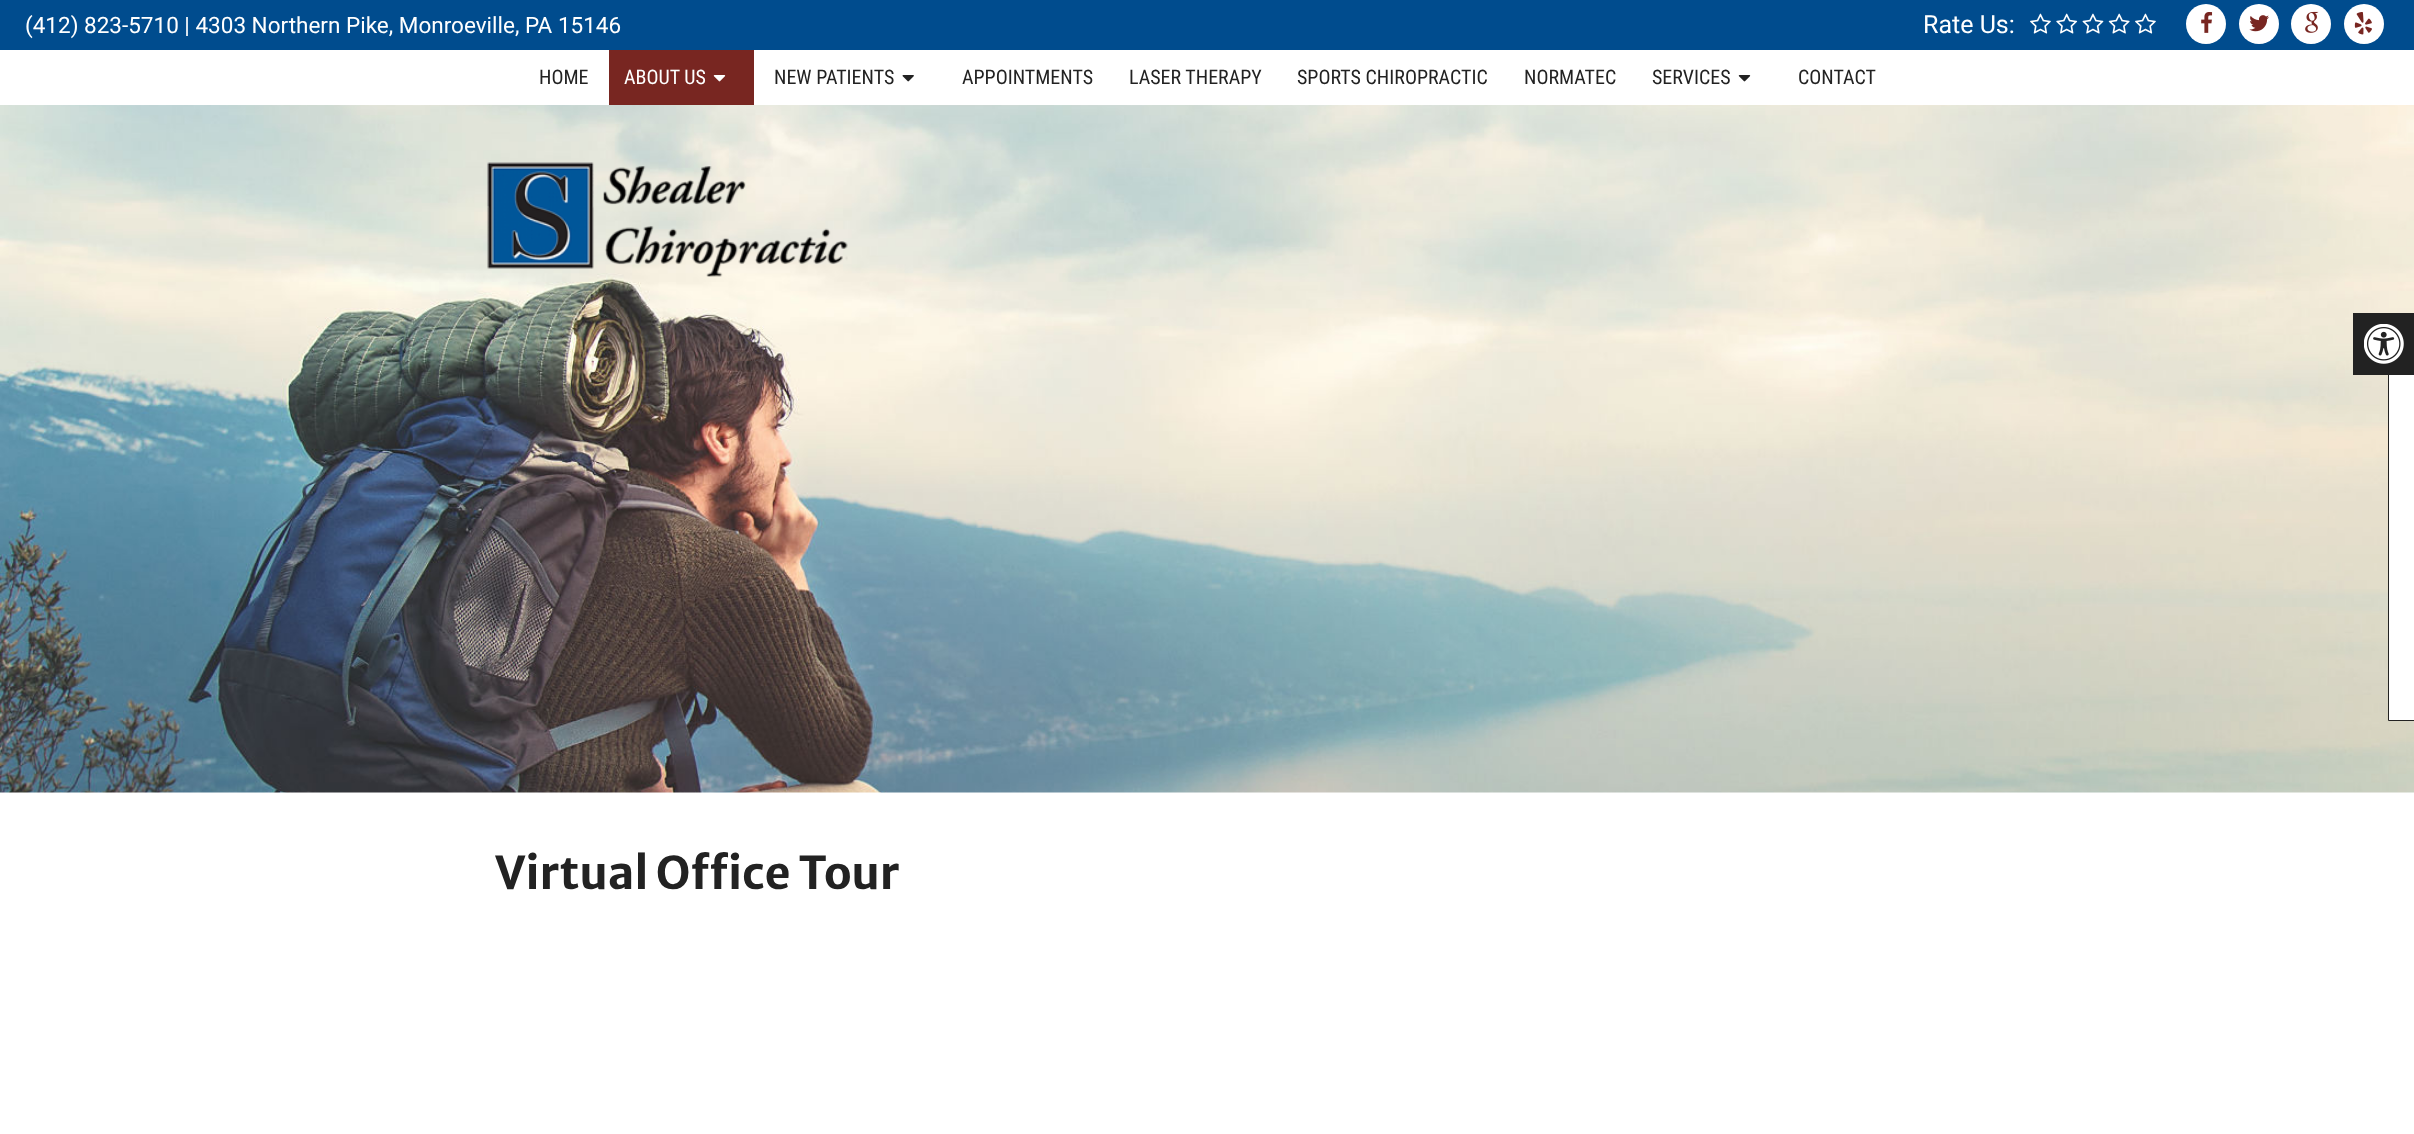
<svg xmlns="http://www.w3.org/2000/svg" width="2414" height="1134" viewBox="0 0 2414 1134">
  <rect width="100%" height="100%" fill="#fff"/>
  <path d="M0 0h2414v50H0z" fill="#004c8e"/>
  <image x="2030" y="13" width="21" height="21" href="img/1.png"/>
  <image x="2056" y="13" width="22" height="21" href="img/2.png"/>
  <image x="2082" y="13" width="22" height="21" href="img/3.png"/>
  <image x="2108" y="13" width="22" height="21" href="img/4.png"/>
  <image x="2135" y="13" width="21" height="21" href="img/1.png"/>
  <circle cx="2206" cy="24" r="20" fill="#fff"/>
  <image x="2201" y="12" width="12" height="21" href="img/5.png"/>
  <circle cx="2259" cy="24" r="20" fill="#fff"/>
  <image x="2249" y="15" width="20" height="17" href="img/6.png"/>
  <circle cx="2311" cy="24" r="20" fill="#fff"/>
  <image x="2305" y="11" width="14" height="22" href="img/7.png"/>
  <circle cx="2364" cy="24" r="20" fill="#fff"/>
  <image x="2354" y="12" width="18" height="23" href="img/8.png"/>
  <path d="M609 50h145v55H609z" fill="#782621"/>
  <image x="713" y="75" width="13" height="7" href="img/9.png"/>
  <image x="902" y="75" width="12" height="7" href="img/10.png"/>
  <image x="1738" y="75" width="13" height="7" href="img/11.png"/>
  <image x="0" y="105" width="2414" height="688" href="img/12.png"/>
  <image x="487" y="162" width="361" height="115" href="img/13.png"/>
  <path d="M2389 375h25v345H2389z" fill="#fff"/>
  <path d="M2388.5 313.5h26v407H2388.5z" fill="none" stroke="#222"/>
  <path d="M2353 313h61v62H2353z" fill="#222"/>
  <image x="2364" y="324" width="40" height="40" href="img/14.png"/>
  <text x="25" y="33" font-family="Roboto" font-size="22.5" fill="#fff">(412) 823-5710 | 4303 Northern Pike, Monroeville, PA 15146</text>
  <text x="1923" y="33" font-family="Roboto" font-size="25" fill="#fff">Rate Us:</text>
  <text x="539" y="84" font-family="Roboto Condensed" font-size="20" fill="#222">HOME</text>
  <text x="624" y="84" font-family="Roboto Condensed" font-size="20" fill="#fff">ABOUT US</text>
  <g font-family="Roboto Condensed" font-size="20" fill="#222">
    <text x="774" y="84">NEW PATIENTS</text>
    <text x="962" y="84">APPOINTMENTS</text>
    <text x="1129" y="84">LASER THERAPY</text>
    <text x="1297" y="84">SPORTS CHIROPRACTIC</text>
    <text x="1524" y="84">NORMATEC</text>
    <text x="1652" y="84">SERVICES</text>
    <text x="1798" y="84">CONTACT</text>
  </g>
  <text x="495" y="889" font-family="Merriweather Sans" font-size="45" font-weight="bold" fill="#222">Virtual Office Tour</text>
</svg>
